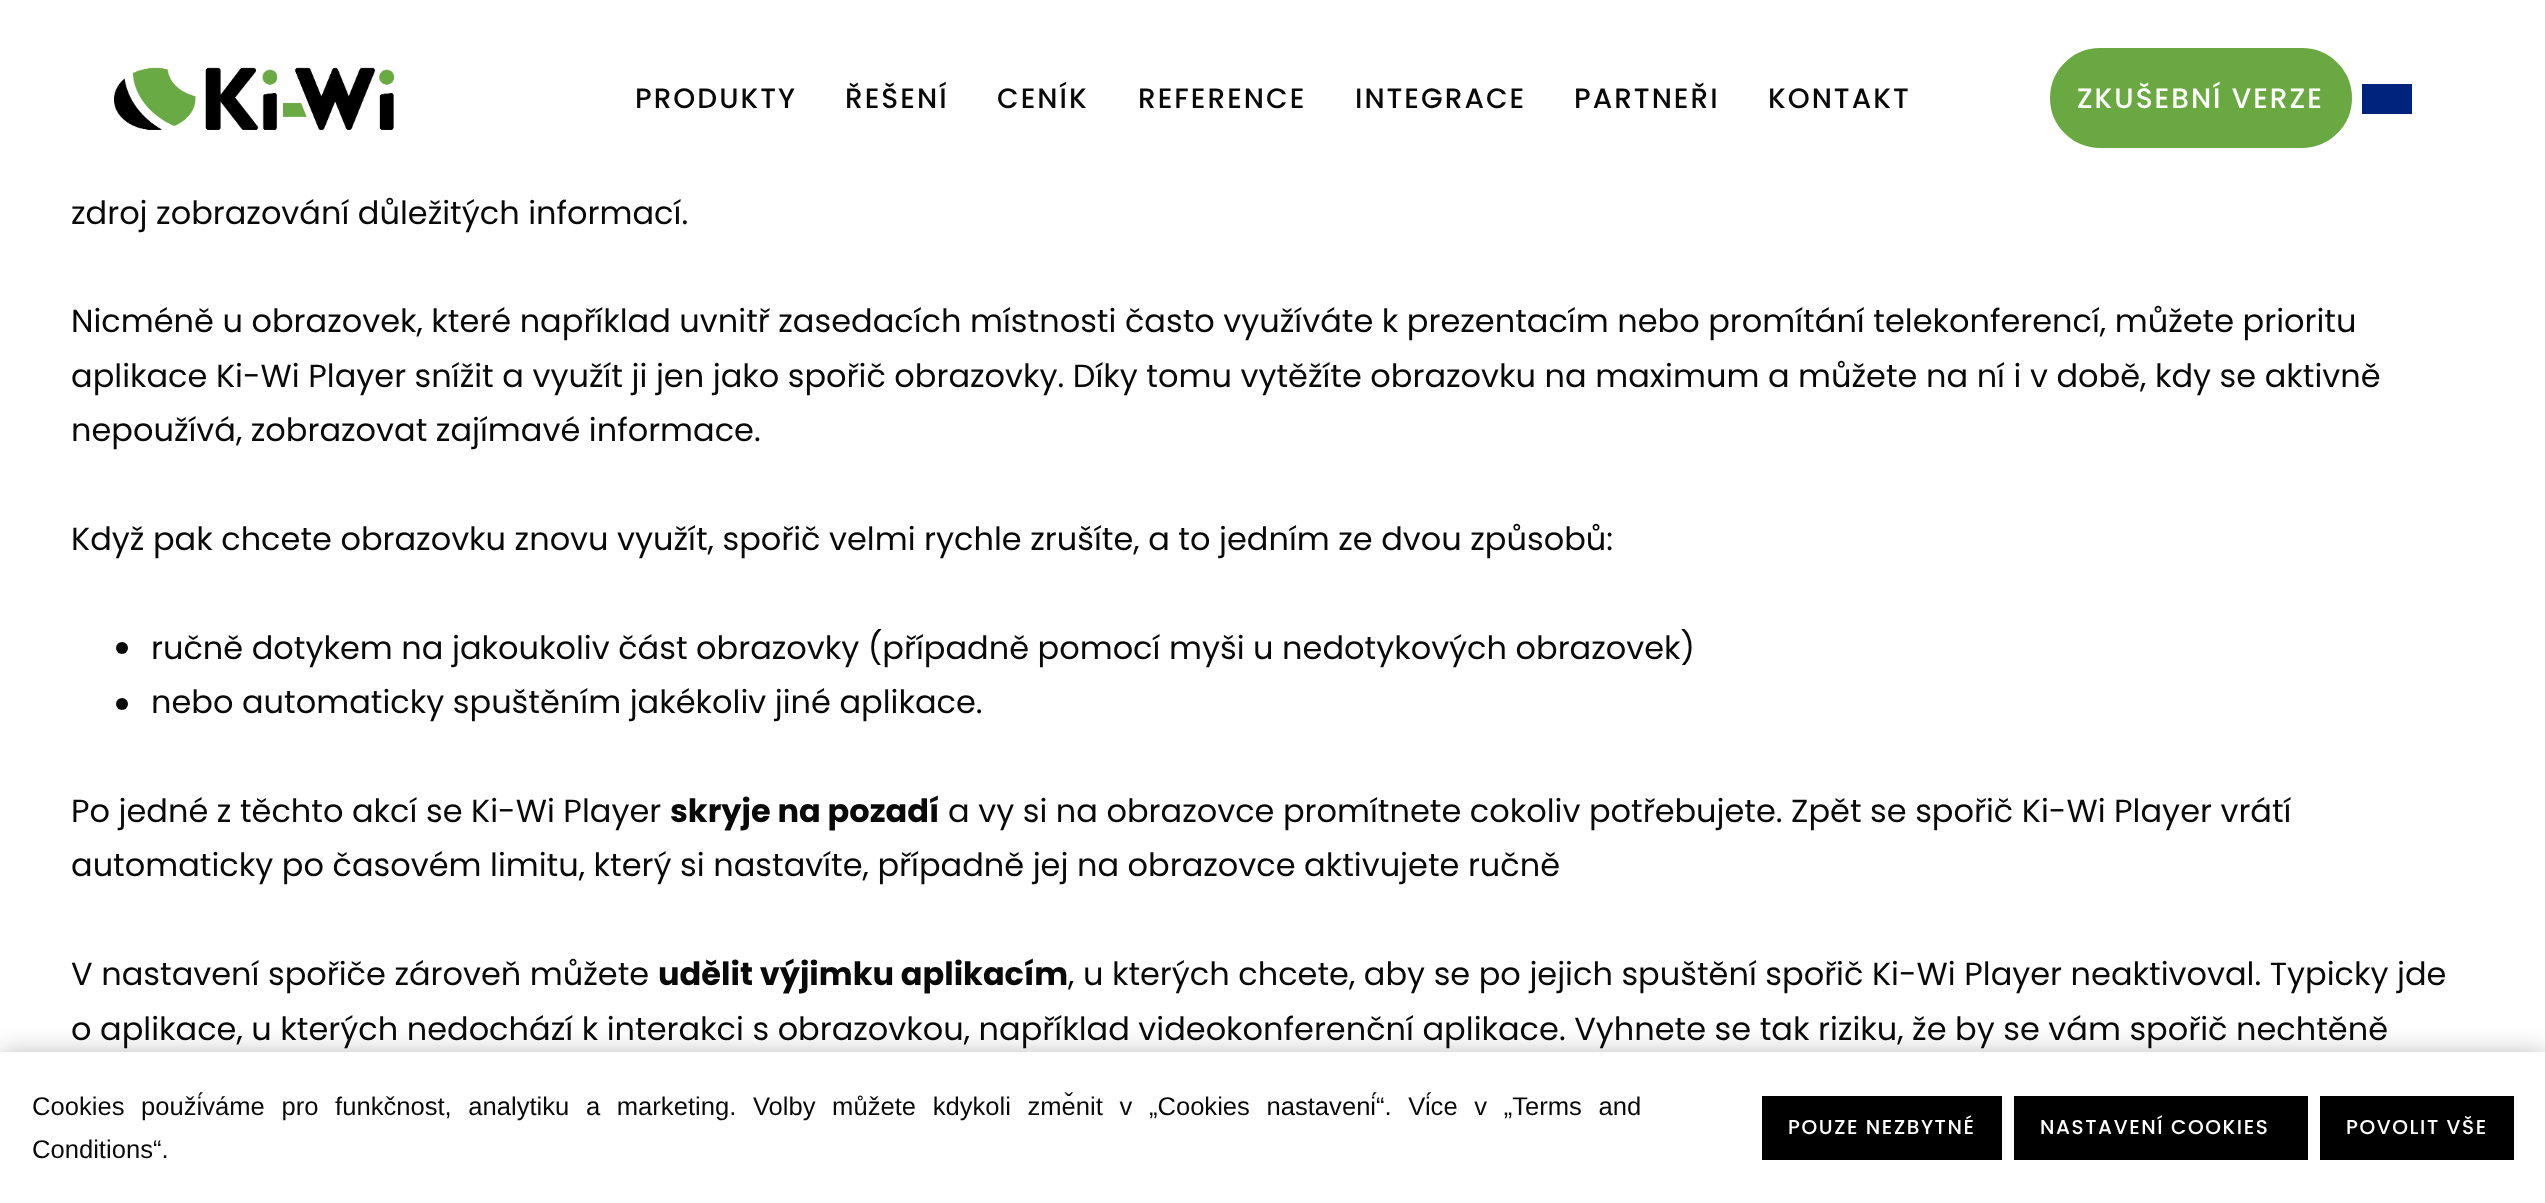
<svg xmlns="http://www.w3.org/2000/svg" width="2545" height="1203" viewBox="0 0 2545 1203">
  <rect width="100%" height="100%" fill="#fff"/>
  <image x="114" y="67" width="281" height="63" href="img/1.png"/>
  <rect x="2052" y="50" width="298" height="96" rx="48" fill="#6aa942" stroke="#6aa942" stroke-width="4"/>
  <path d="M2362 84h50v30H2362z" fill="#00247d"/>
  <circle cx="122" cy="648" r="6" fill="#090909"/>
  <circle cx="122" cy="704" r="6" fill="#090909"/>
  <path d="M0 1052h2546v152H0z" fill="#00000040" filter="blur(12px)"/>
  <path d="M0 1052h2545v151H0z" fill="#fff"/>
  <path d="M1762 1096h240v64H1762z" fill="#000"/>
  <path d="M2014 1096h294v64H2014z" fill="#000"/>
  <path d="M2320 1096h194v64H2320z" fill="#000"/>
  <g font-family="Poppins" font-size="28" font-weight="500" letter-spacing="2" fill="#090909">
    <text x="635" y="108">PRODUKTY</text>
    <text x="845" y="108">ŘEŠENÍ</text>
    <text x="997" y="108">CENÍK</text>
    <text x="1138" y="108">REFERENCE</text>
    <text x="1355" y="108">INTEGRACE</text>
    <text x="1574" y="108">PARTNEŘI</text>
    <text x="1768" y="108">KONTAKT</text>
  </g>
  <text x="2077" y="108" font-family="Poppins" font-size="28" font-weight="500" letter-spacing="2" fill="#fff">ZKUŠEBNÍ VERZE</text>
  <g font-family="Poppins" font-size="32" fill="#090909">
    <text x="71" y="224">zdroj zobrazování důležitých informací.</text>
    <text x="71" y="332">Nicméně u obrazovek, které například uvnitř zasedacích místnosti často využíváte k prezentacím nebo promítání telekonferencí, můžete prioritu</text>
    <text x="71" y="387">aplikace Ki-Wi Player snížit a využít ji jen jako spořič obrazovky. Díky tomu vytěžíte obrazovku na maximum a můžete na ní i v době, kdy se aktivně</text>
    <text x="71" y="441">nepoužívá, zobrazovat zajímavé informace.</text>
    <text x="71" y="550">Když pak chcete obrazovku znovu využít, spořič velmi rychle zrušíte, a to jedním ze dvou způsobů:</text>
    <text x="151" y="659">ručně dotykem na jakoukoliv část obrazovky (případně pomocí myši u nedotykových obrazovek)</text>
    <text x="151" y="713">nebo automaticky spuštěním jakékoliv jiné aplikace.</text>
    <text x="71" y="822">Po jedné z těchto akcí se Ki-Wi Player</text>
  </g>
  <text x="670" y="822" font-family="Poppins" font-size="32" font-weight="bold" fill="#090909">skryje na pozadí</text>
  <g font-family="Poppins" font-size="32" fill="#090909">
    <text x="948" y="822">a vy si na obrazovce promítnete cokoliv potřebujete. Zpět se spořič Ki-Wi Player vrátí</text>
    <text x="71" y="876">automaticky po časovém limitu, který si nastavíte, případně jej na obrazovce aktivujete ručně</text>
    <text x="71" y="985">V nastavení spořiče zároveň můžete</text>
  </g>
  <text x="658" y="985" font-family="Poppins" font-size="32" font-weight="bold" fill="#090909">udělit výjimku aplikacím</text>
  <g font-family="Poppins" font-size="32" fill="#090909">
    <text x="1068" y="985">, u kterých chcete, aby se po jejich spuštění spořič Ki-Wi Player neaktivoval. Typicky jde</text>
    <text x="71" y="1040">o aplikace, u kterých nedochází k interakci s obrazovkou, například videokonferenční aplikace. Vyhnete se tak riziku, že by se vám spořič nechtěně</text>
  </g>
  <g font-family="Liberation Sans" font-size="25.6" fill="#090909">
    <text x="32" y="1115" word-spacing="9.5">Cookies používáme pro funkčnost, analytiku a marketing. Volby můžete kdykoli změnit v „Cookies nastavení“. Více v „Terms and</text>
    <text x="32" y="1158">Conditions“.</text>
  </g>
  <g font-family="Poppins" font-size="20" font-weight="500" letter-spacing="1.6" fill="#fff">
    <text x="1788" y="1134">POUZE NEZBYTNÉ</text>
    <text x="2040" y="1134">NASTAVENÍ COOKIES</text>
    <text x="2346" y="1134">POVOLIT VŠE</text>
  </g>
</svg>
